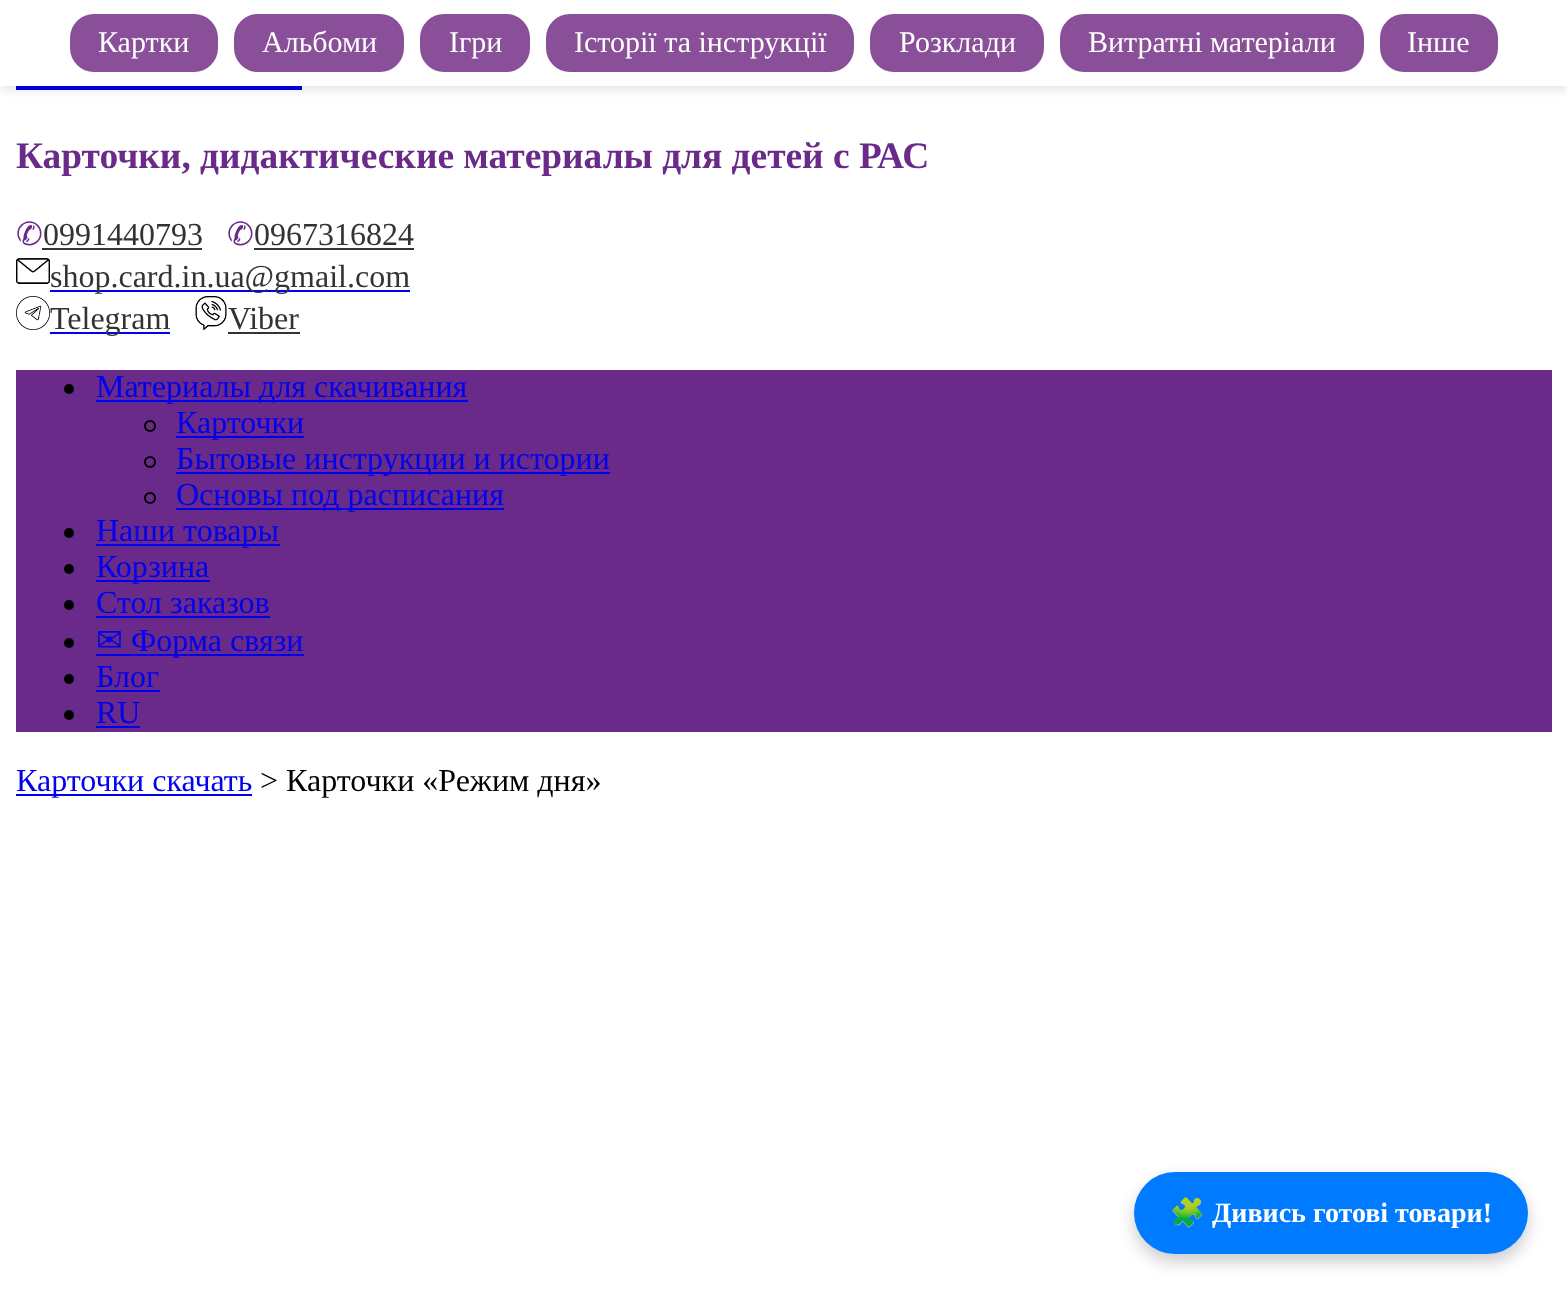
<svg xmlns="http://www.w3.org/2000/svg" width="1567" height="1294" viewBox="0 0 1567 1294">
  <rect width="100%" height="100%" fill="#fff"/>
  <path d="M16 86h286v4H16z" fill="#00e"/>
  <path d="M0 4h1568v86H0z" fill="#0000001a" filter="blur(5px)"/>
  <path d="M0 0h1567v86H0z" fill="#fff"/>
  <rect x="70" y="14" width="148" height="58" rx="24" fill="#8a4f99"/>
  <rect x="234" y="14" width="170" height="58" rx="24" fill="#8a4f99"/>
  <rect x="420" y="14" width="110" height="58" rx="24" fill="#8a4f99"/>
  <rect x="546" y="14" width="308" height="58" rx="24" fill="#8a4f99"/>
  <rect x="870" y="14" width="174" height="58" rx="24" fill="#8a4f99"/>
  <rect x="1060" y="14" width="304" height="58" rx="24" fill="#8a4f99"/>
  <rect x="1380" y="14" width="118" height="58" rx="24" fill="#8a4f99"/>
  <path d="M16 794h236v2H16z" fill="#00e"/>
  <path d="M42 248h160v2H42z" fill="#333"/>
  <path d="M254 248h160v2H254z" fill="#333"/>
  <image x="16" y="258" width="34" height="26" href="img/1.png"/>
  <path d="M50 290h360v2H50z" fill="#00e"/>
  <image x="16" y="296" width="34" height="34" href="img/2.png"/>
  <path d="M50 332h120v2H50z" fill="#00e"/>
  <image x="195" y="296" width="32" height="34" href="img/3.png"/>
  <path d="M228 332h72v2H228z" fill="#333"/>
  <path d="M16 370h1536v362H16z" fill="#6a2a89"/>
  <circle cx="69" cy="389" r="5" fill="#000"/>
  <path d="M96 400h372v2H96z" fill="#00e"/>
  <circle cx="150" cy="426" r="5" fill="none" stroke="#000" stroke-width="2"/>
  <path d="M176 436h128v2H176z" fill="#00e"/>
  <circle cx="150" cy="462" r="5" fill="none" stroke="#000" stroke-width="2"/>
  <path d="M176 472h434v2H176z" fill="#00e"/>
  <circle cx="150" cy="498" r="5" fill="none" stroke="#000" stroke-width="2"/>
  <path d="M176 508h328v2H176z" fill="#00e"/>
  <circle cx="69" cy="533" r="5" fill="#000"/>
  <path d="M96 544h184v2H96z" fill="#00e"/>
  <circle cx="69" cy="569" r="5" fill="#000"/>
  <path d="M96 580h114v2H96z" fill="#00e"/>
  <circle cx="69" cy="605" r="5" fill="#000"/>
  <path d="M96 616h174v2H96z" fill="#00e"/>
  <circle cx="69" cy="643" r="5" fill="#000"/>
  <path d="M96 654h208v2H96z" fill="#00e"/>
  <circle cx="69" cy="679" r="5" fill="#000"/>
  <path d="M96 690h64v2H96z" fill="#00e"/>
  <circle cx="69" cy="715" r="5" fill="#000"/>
  <path d="M96 726h44v2H96z" fill="#00e"/>
  <rect x="1134" y="1180" width="394" height="82" rx="41" fill="#00000033" filter="blur(8px)"/>
  <rect x="1134" y="1172" width="394" height="82" rx="41" fill="#007bff"/>
  <g font-family="Liberation Serif" font-size="30" fill="#fff">
    <text x="98" y="52">Картки</text>
    <text x="262" y="52">Альбоми</text>
    <text x="449" y="52">Ігри</text>
    <text x="574" y="52">Історії та інструкції</text>
    <text x="899" y="52">Розклади</text>
    <text x="1088" y="52">Витратні матеріали</text>
    <text x="1407" y="52">Інше</text>
  </g>
  <text x="16" y="791" font-family="Liberation Serif" font-size="32" fill="#00e">Карточки скачать</text>
  <text x="260" y="791" font-family="Liberation Serif" font-size="32" fill="#000">&gt; Карточки «Режим дня»</text>
  <text x="16" y="168" font-family="Liberation Serif" font-size="37.4" font-weight="bold" fill="#6a2a89">Карточки, дидактические материалы для детей с РАС</text>
  <text x="16" y="245" font-family="DejaVu Sans" font-size="32" fill="#6a2a89">✆</text>
  <text x="43" y="245" font-family="Liberation Serif" font-size="32" fill="#333">0991440793</text>
  <text x="227" y="245" font-family="DejaVu Sans" font-size="32" fill="#6a2a89">✆</text>
  <g font-family="Liberation Serif" font-size="32" fill="#333">
    <text x="254" y="245">0967316824</text>
    <text x="50" y="287">shop.card.in.ua@gmail.com</text>
    <text x="50" y="329">Telegram</text>
    <text x="228" y="329">Viber</text>
  </g>
  <g font-family="Liberation Serif" font-size="32" fill="#00e">
    <text x="96" y="397">Материалы для скачивания</text>
    <text x="176" y="433">Карточки</text>
    <text x="176" y="469">Бытовые инструкции и истории</text>
    <text x="176" y="505">Основы под расписания</text>
    <text x="96" y="541">Наши товары</text>
    <text x="96" y="577">Корзина</text>
    <text x="96" y="613">Стол заказов</text>
  </g>
  <text x="96" y="651" font-family="DejaVu Sans" font-size="32" fill="#00e">✉</text>
  <g font-family="Liberation Serif" font-size="32" fill="#00e">
    <text x="131" y="651">Форма связи</text>
    <text x="96" y="687">Блог</text>
    <text x="96" y="723">RU</text>
  </g>
  <text x="1170" y="1222" font-family="Noto Color Emoji" font-size="28" font-weight="bold" fill="#fff">🧩</text>
  <text x="1212" y="1222" font-family="Liberation Serif" font-size="28" font-weight="bold" fill="#fff">Дивись готові товари!</text>
</svg>
